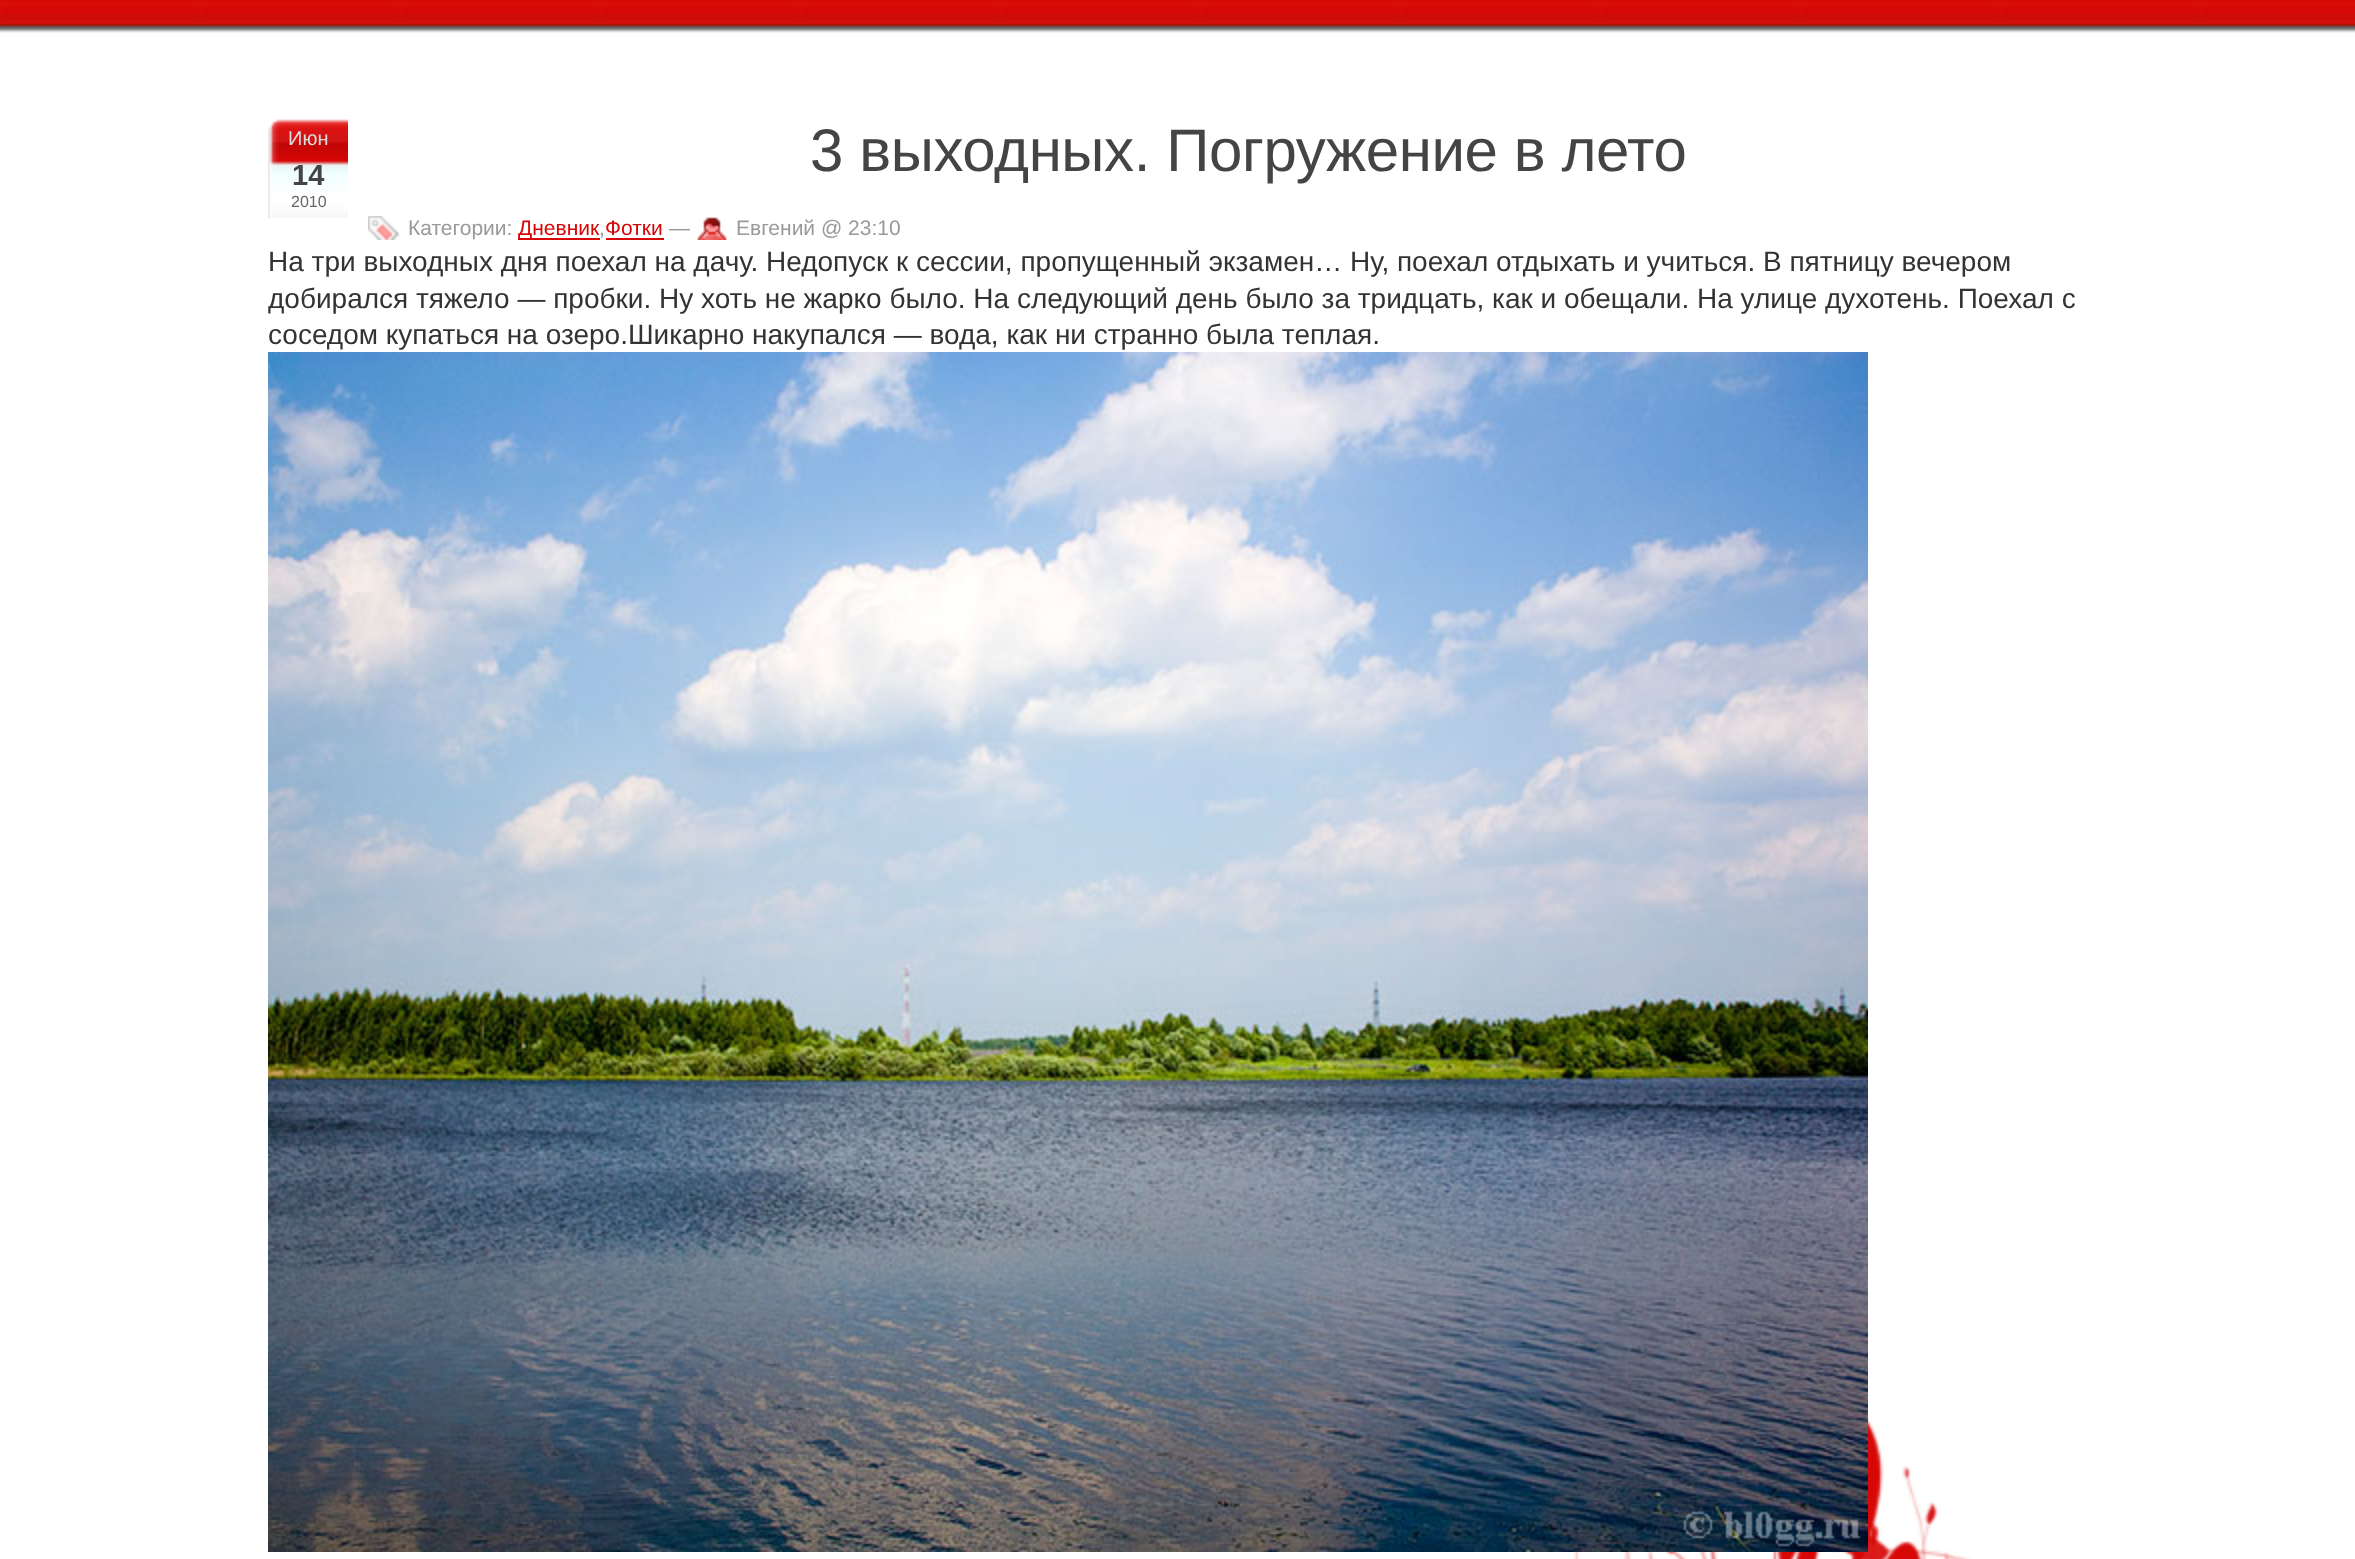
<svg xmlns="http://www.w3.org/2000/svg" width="2355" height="1559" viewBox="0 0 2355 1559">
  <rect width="100%" height="100%" fill="#fff"/>
  <image x="0" y="0" width="2355" height="33" href="img/1.png"/>
  <image x="1571" y="1247" width="401" height="312" href="img/2.png"/>
  <image x="268" y="118" width="80" height="100" href="img/3.png"/>
  <image x="368" y="216" width="32" height="24" href="img/4.png"/>
  <image x="697" y="217" width="30" height="23" href="img/5.png"/>
  <path d="M518 238h82v2H518z" fill="#d70606"/>
  <path d="M606 238h58v2H606z" fill="#d70606"/>
  <image x="268" y="352" width="1600" height="1200" href="img/6.png"/>
  <text x="288" y="145" font-family="Liberation Sans" font-size="20" fill="#ddd">Июн</text>
  <text x="292" y="185" font-family="Liberation Sans" font-size="29" font-weight="bold" fill="#444">14</text>
  <text x="291" y="207" font-family="Liberation Sans" font-size="16" fill="#666">2010</text>
  <text x="810" y="171" font-family="Liberation Sans" font-size="60" letter-spacing="-0.4" fill="#444">3 выходных. Погружение в лето</text>
  <text x="408" y="235" font-family="Liberation Sans" font-size="21" fill="#999">Категории:</text>
  <text x="518" y="235" font-family="Liberation Sans" font-size="21" fill="#d70606">Дневник Фотки</text>
  <g font-family="Liberation Sans" font-size="21" fill="#999">
    <text x="669" y="235">—</text>
    <text x="736" y="235">Евгений @ 23:10</text>
    <text x="599" y="235">,</text>
  </g>
  <g font-family="Liberation Sans" font-size="28" fill="#333">
    <text x="268" y="271">На три выходных дня поехал на дачу. Недопуск к сессии, пропущенный экзамен… Ну, поехал отдыхать и учиться. В пятницу вечером</text>
    <text x="268" y="308">добирался тяжело — пробки. Ну хоть не жарко было. На следующий день было за тридцать, как и обещали. На улице духотень. Поехал с</text>
    <text x="268" y="344">соседом купаться на озеро.Шикарно накупался — вода, как ни странно была теплая.</text>
  </g>
</svg>
